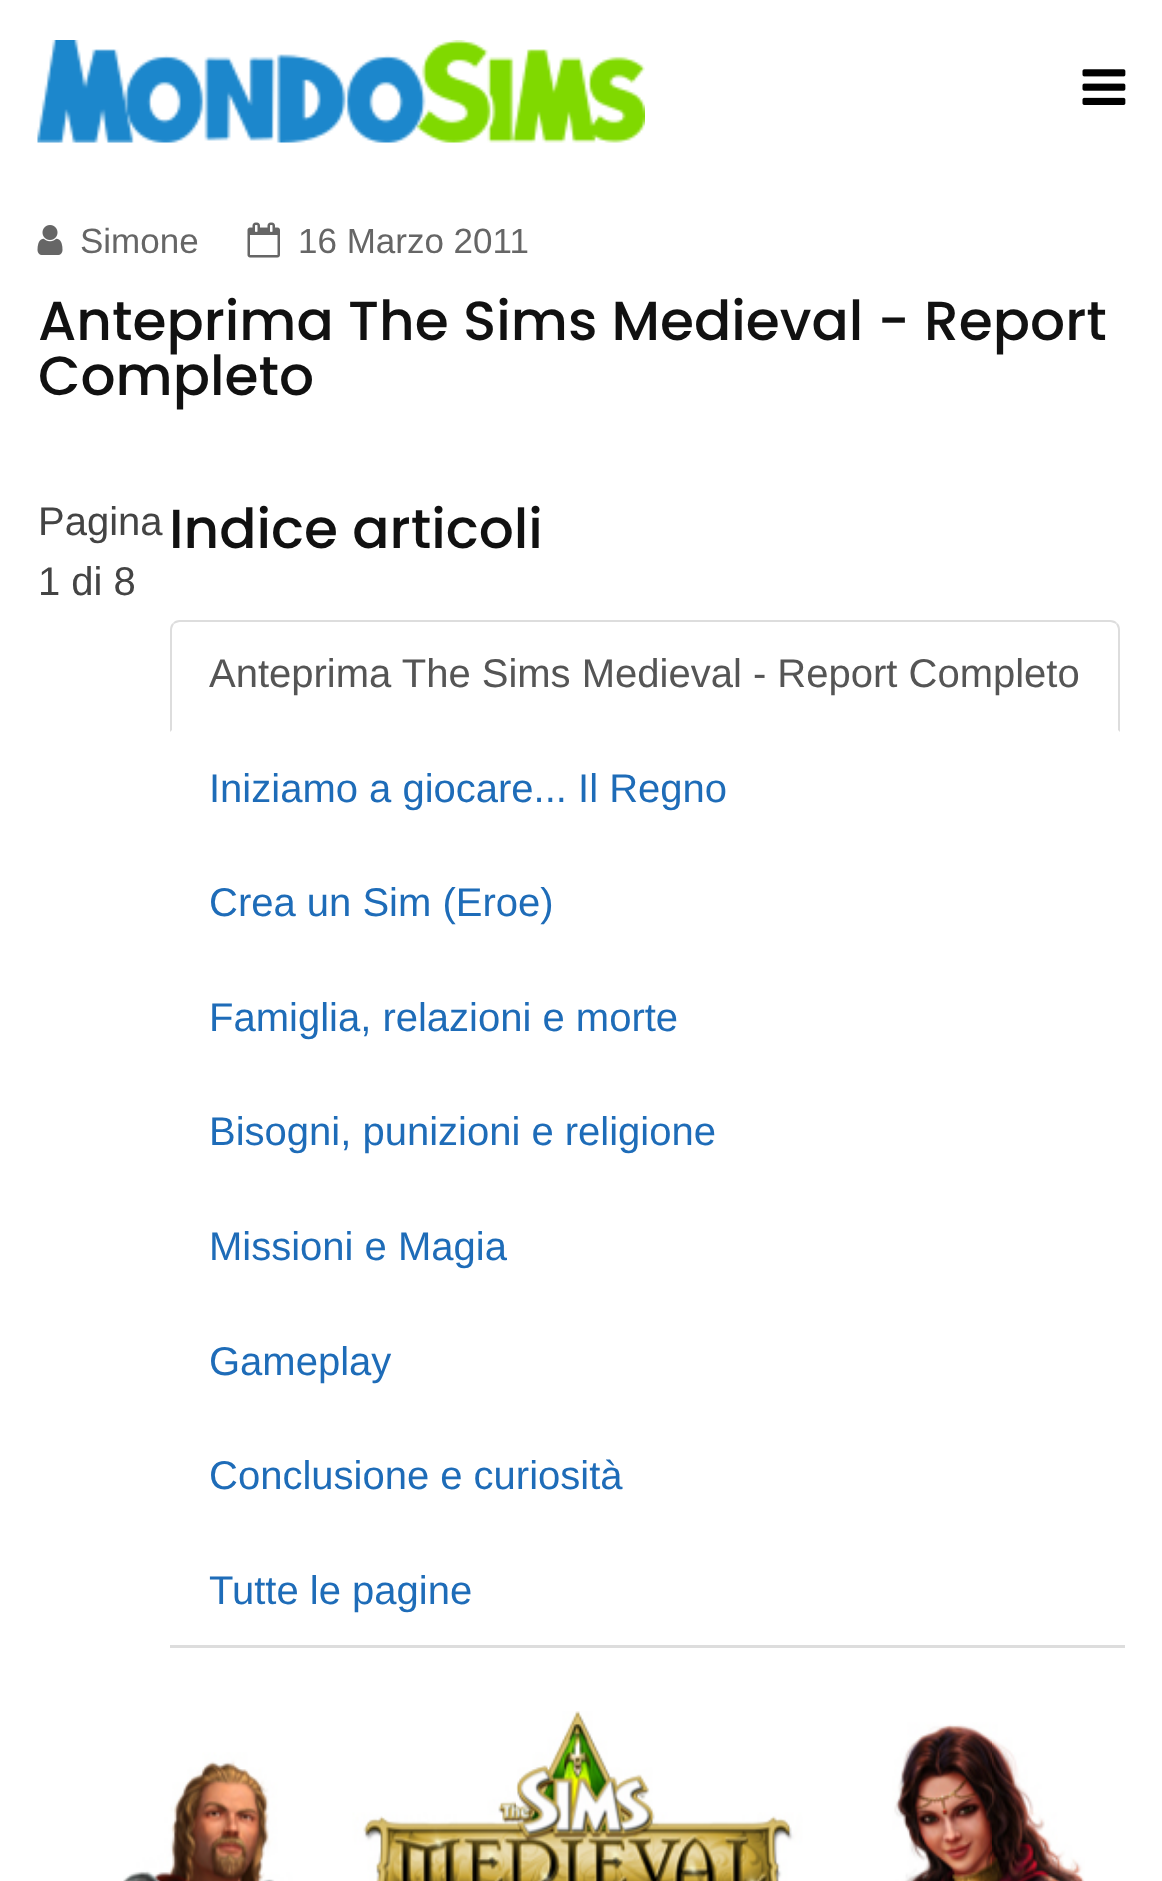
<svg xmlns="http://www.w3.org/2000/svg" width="1162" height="1881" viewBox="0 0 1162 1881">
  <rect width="100%" height="100%" fill="#fff"/>
  <image x="37" y="40" width="608" height="103" href="img/1.png"/>
  <image x="1082" y="69" width="44" height="36" href="img/2.png"/>
  <image x="37" y="225" width="26" height="30" href="img/3.png"/>
  <image x="247" y="222" width="33" height="36" href="img/4.png"/>
  <image x="123" y="1711" width="962" height="170" href="img/5.png"/>
  <path d="M170 1645h955v3H170z" fill="#ddd"/>
  <path d="M180 620C177 620 174 621 173 623L174 624C176 623 178 622 180 622H1110C1112 622 1114 623 1116 624L1117 623C1116 621 1113 620 1110 620Z" fill="#ddd"/>
  <path d="M1120 732V630C1120 627 1119 624 1117 623L1116 624C1117 626 1118 628 1118 630V730Z" fill="#ddd"/>
  <path d="M170 630V732L172 730V630C172 628 173 626 174 624L173 623C171 624 170 627 170 630Z" fill="#ddd"/>
  <g font-family="Liberation Sans" font-size="35" fill="#666">
    <text x="80" y="253">Simone</text>
    <text x="298" y="253">16 Marzo 2011</text>
  </g>
  <g font-family="Poppins" font-size="55" font-weight="500" fill="#111">
    <text x="38" y="340">Anteprima The Sims Medieval - Report</text>
    <text x="38" y="395">Completo</text>
  </g>
  <g font-family="Liberation Sans" font-size="40" fill="#444">
    <text x="38" y="535">Pagina</text>
    <text x="38" y="595">1 di 8</text>
  </g>
  <text x="169" y="548" font-family="Poppins" font-size="55" font-weight="500" fill="#111">Indice articoli</text>
  <text x="209" y="687" font-family="Liberation Sans" font-size="40" fill="#555">Anteprima The Sims Medieval - Report Completo</text>
  <g font-family="Liberation Sans" font-size="40" fill="#1e6cb8">
    <text x="209" y="802">Iniziamo a giocare... Il Regno</text>
    <text x="209" y="916">Crea un Sim (Eroe)</text>
    <text x="209" y="1031">Famiglia, relazioni e morte</text>
    <text x="209" y="1145">Bisogni, punizioni e religione</text>
    <text x="209" y="1260">Missioni e Magia</text>
    <text x="209" y="1375">Gameplay</text>
    <text x="209" y="1489">Conclusione e curiosità</text>
    <text x="209" y="1604">Tutte le pagine</text>
  </g>
</svg>
